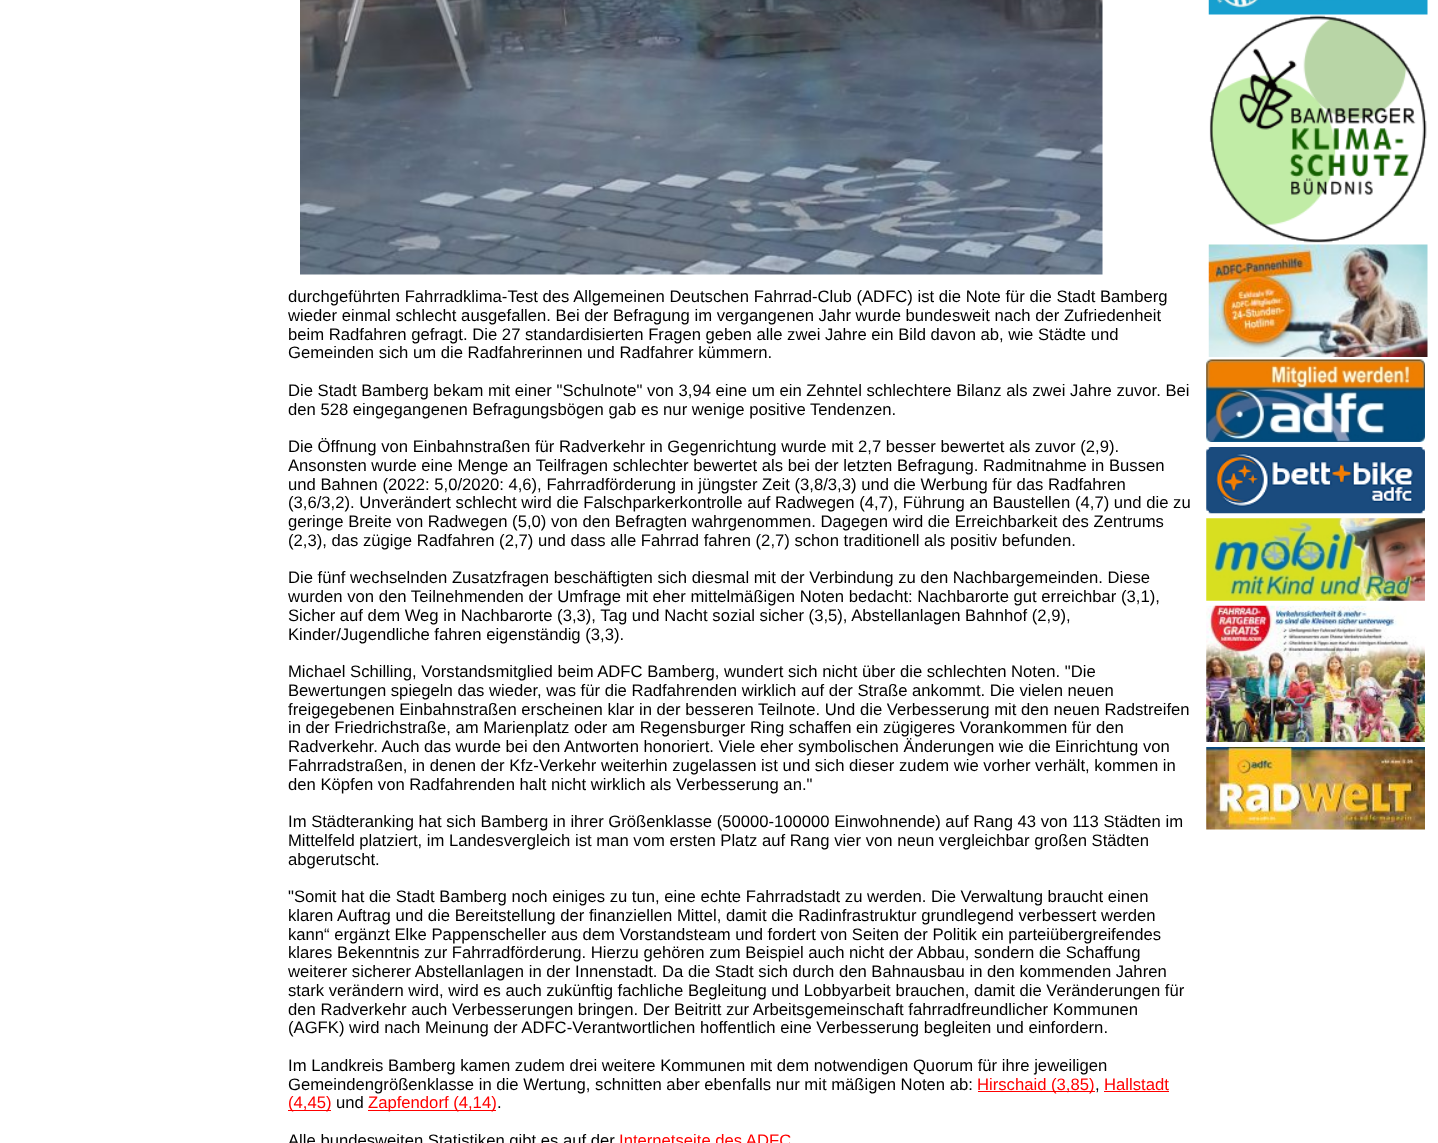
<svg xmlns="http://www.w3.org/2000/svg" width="1438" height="1143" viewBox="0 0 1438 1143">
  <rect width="100%" height="100%" fill="#fff"/>
  <image x="300" y="0" width="803" height="275" href="img/1.png"/>
  <path d="M978 1091h117v1H978z" fill="#f00"/>
  <path d="M1104 1091h65v1H1104z" fill="#f00"/>
  <path d="M288 1110h43v1H288z" fill="#f00"/>
  <path d="M368 1110h128v1H368z" fill="#f00"/>
  <image x="1208" y="0" width="220" height="15" href="img/2.png"/>
  <image x="1209" y="15" width="218" height="228" href="img/3.png"/>
  <image x="1208" y="244" width="220" height="113" href="img/4.png"/>
  <image x="1206" y="359" width="219" height="83" href="img/5.png"/>
  <image x="1206" y="447" width="219" height="67" href="img/6.png"/>
  <image x="1206" y="518" width="219" height="83" href="img/7.png"/>
  <image x="1206" y="605" width="219" height="137" href="img/8.png"/>
  <image x="1206" y="747" width="219" height="83" href="img/9.png"/>
  <g font-family="Liberation Sans" font-size="16.67" fill="#000">
    <text x="288" y="302">durchgeführten Fahrradklima-Test des Allgemeinen Deutschen Fahrrad-Club (ADFC) ist die Note für die Stadt Bamberg</text>
    <text x="288" y="321">wieder einmal schlecht ausgefallen. Bei der Befragung im vergangenen Jahr wurde bundesweit nach der Zufriedenheit</text>
    <text x="288" y="340">beim Radfahren gefragt. Die 27 standardisierten Fragen geben alle zwei Jahre ein Bild davon ab, wie Städte und</text>
    <text x="288" y="358">Gemeinden sich um die Radfahrerinnen und Radfahrer kümmern.</text>
    <text x="288" y="396">Die Stadt Bamberg bekam mit einer "Schulnote" von 3,94 eine um ein Zehntel schlechtere Bilanz als zwei Jahre zuvor. Bei</text>
    <text x="288" y="415">den 528 eingegangenen Befragungsbögen gab es nur wenige positive Tendenzen.</text>
    <text x="288" y="452">Die Öffnung von Einbahnstraßen für Radverkehr in Gegenrichtung wurde mit 2,7 besser bewertet als zuvor (2,9).</text>
    <text x="288" y="471">Ansonsten wurde eine Menge an Teilfragen schlechter bewertet als bei der letzten Befragung. Radmitnahme in Bussen</text>
    <text x="288" y="490">und Bahnen (2022: 5,0/2020: 4,6), Fahrradförderung in jüngster Zeit (3,8/3,3) und die Werbung für das Radfahren</text>
    <text x="288" y="508">(3,6/3,2). Unverändert schlecht wird die Falschparkerkontrolle auf Radwegen (4,7), Führung an Baustellen (4,7) und die zu</text>
    <text x="288" y="527">geringe Breite von Radwegen (5,0) von den Befragten wahrgenommen. Dagegen wird die Erreichbarkeit des Zentrums</text>
    <text x="288" y="546">(2,3), das zügige Radfahren (2,7) und dass alle Fahrrad fahren (2,7) schon traditionell als positiv befunden.</text>
    <text x="288" y="583">Die fünf wechselnden Zusatzfragen beschäftigten sich diesmal mit der Verbindung zu den Nachbargemeinden. Diese</text>
    <text x="288" y="602">wurden von den Teilnehmenden der Umfrage mit eher mittelmäßigen Noten bedacht: Nachbarorte gut erreichbar (3,1),</text>
    <text x="288" y="621">Sicher auf dem Weg in Nachbarorte (3,3), Tag und Nacht sozial sicher (3,5), Abstellanlagen Bahnhof (2,9),</text>
    <text x="288" y="640">Kinder/Jugendliche fahren eigenständig (3,3).</text>
    <text x="288" y="677">Michael Schilling, Vorstandsmitglied beim ADFC Bamberg, wundert sich nicht über die schlechten Noten. "Die</text>
    <text x="288" y="696">Bewertungen spiegeln das wieder, was für die Radfahrenden wirklich auf der Straße ankommt. Die vielen neuen</text>
    <text x="288" y="715">freigegebenen Einbahnstraßen erscheinen klar in der besseren Teilnote. Und die Verbesserung mit den neuen Radstreifen</text>
    <text x="288" y="733">in der Friedrichstraße, am Marienplatz oder am Regensburger Ring schaffen ein zügigeres Vorankommen für den</text>
    <text x="288" y="752">Radverkehr. Auch das wurde bei den Antworten honoriert. Viele eher symbolischen Änderungen wie die</text>
    <text x="1055" y="752">Einrichtung von</text>
    <text x="288" y="771">Fahrradstraßen, in denen der Kfz-Verkehr weiterhin zugelassen ist und sich dieser zudem wie vorher verhält, kommen in</text>
    <text x="288" y="790">den Köpfen von Radfahrenden halt nicht wirklich als Verbesserung an."</text>
    <text x="288" y="827">Im Städteranking hat sich Bamberg in ihrer Größenklasse (50000-100000 Einwohnende) auf Rang 43 von 113 Städten im</text>
    <text x="288" y="846">Mittelfeld platziert, im Landesvergleich ist man vom ersten Platz auf Rang vier von neun vergleichbar großen Städten</text>
    <text x="288" y="865">abgerutscht.</text>
    <text x="288" y="902">"Somit hat die Stadt Bamberg noch einiges zu tun, eine echte Fahrradstadt zu werden. Die Verwaltung braucht einen</text>
    <text x="288" y="921">klaren Auftrag und die Bereitstellung der finanziellen Mittel, damit die Radinfrastruktur grundlegend verbessert werden</text>
    <text x="288" y="940">kann“ ergänzt Elke Pappenscheller aus dem Vorstandsteam und fordert von Seiten der Politik ein parteiübergreifendes</text>
    <text x="288" y="958">klares Bekenntnis zur Fahrradförderung. Hierzu gehören zum Beispiel auch nicht der Abbau, sondern die Schaffung</text>
    <text x="288" y="977">weiterer sicherer Abstellanlagen in der Innenstadt. Da die Stadt sich durch den Bahnausbau in den kommenden Jahren</text>
    <text x="288" y="996">stark verändern wird, wird es auch zukünftig fachliche Begleitung und Lobbyarbeit brauchen, damit die Veränderungen für</text>
    <text x="288" y="1015">den Radverkehr auch Verbesserungen bringen. Der Beitritt zur Arbeitsgemeinschaft fahrradfreundlicher Kommunen</text>
    <text x="288" y="1033">(AGFK) wird nach Meinung der ADFC-Verantwortlichen hoffentlich eine Verbesserung begleiten und einfordern.</text>
    <text x="288" y="1071">Im Landkreis Bamberg kamen zudem drei weitere Kommunen mit dem notwendigen Quorum für ihre jeweiligen</text>
    <text x="288" y="1090">Gemeindengrößenklasse in die Wertung, schnitten aber ebenfalls nur mit mäßigen Noten ab:</text>
  </g>
  <text x="977" y="1090" font-family="Liberation Sans" font-size="16.67" fill="#f00">Hirschaid (3,85)</text>
  <text x="1095" y="1090" font-family="Liberation Sans" font-size="16.67" fill="#000">,</text>
  <g font-family="Liberation Sans" font-size="16.67" fill="#f00">
    <text x="1104" y="1090">Hallstadt</text>
    <text x="288" y="1108">(4,45)</text>
  </g>
  <text x="336" y="1108" font-family="Liberation Sans" font-size="16.67" fill="#000">und</text>
  <text x="368" y="1108" font-family="Liberation Sans" font-size="16.67" fill="#f00">Zapfendorf (4,14)</text>
  <g font-family="Liberation Sans" font-size="16.67" fill="#000">
    <text x="497" y="1108">.</text>
    <text x="288" y="1146">Alle bundesweiten Statistiken gibt es auf der</text>
  </g>
  <text x="619" y="1146" font-family="Liberation Sans" font-size="16.67" fill="#f00">Internetseite des ADFC</text>
</svg>
